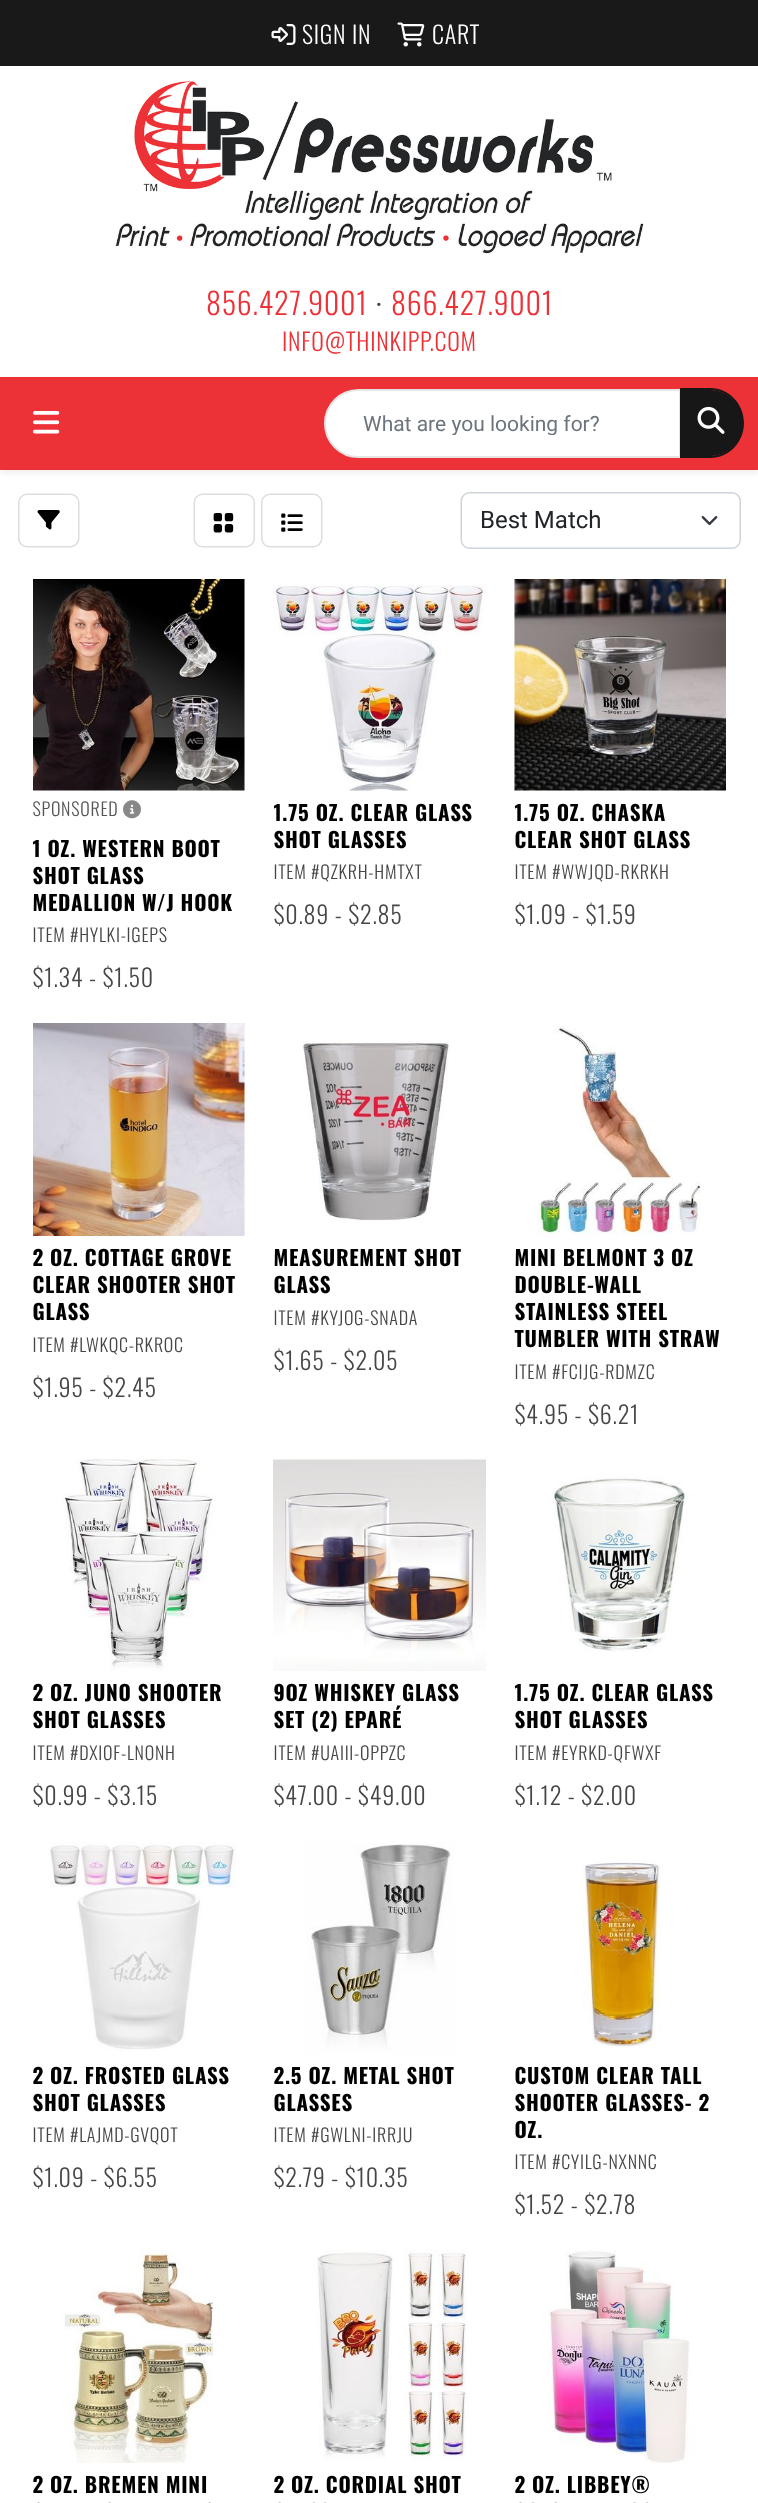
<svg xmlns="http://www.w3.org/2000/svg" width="758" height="2503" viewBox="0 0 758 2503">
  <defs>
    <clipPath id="clip1"><path d="M363 411h299v24H363z"/></clipPath>
  </defs>
  <rect width="100%" height="100%" fill="#fff"/>
  <path d="M0 0h758v66H0z" fill="#191919"/>
  <image x="271" y="24" width="25" height="21" href="img/1.png"/>
  <image x="397" y="22" width="28" height="25" href="img/2.png"/>
  <image x="115" y="81" width="529" height="173" href="img/3.png"/>
  <path d="M0 380h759v93H0z" fill="#00000012" filter="blur(3px)"/>
  <path d="M0 377h758v93H0z" fill="#ed3237"/>
  <image x="33" y="411" width="27" height="23" href="img/4.png"/>
  <path d="M358.5 390H680V457H358.5C340 457 325 442 325 423.5C325 405 340 390 358.5 390Z" fill="#fff" stroke="#e4e4e4" stroke-width="2"/>
  <path d="M680 390H710C728 390 743 405 743 423C743 441 728 456 710 456H680Z" fill="#171717"/>
  <path d="M680 388H710C729 388 744 404 744 423C744 442 729 458 710 458H680ZM680 390H710C728 390 742 405 742 423C742 441 728 456 710 456H680Z" fill="#171717" fill-rule="evenodd"/>
  <image x="697" y="406" width="28" height="28" href="img/5.png"/>
  <image x="18" y="492" width="723" height="2011" href="img/6.png"/>
  <g font-family="Oswald" font-size="24" font-weight="300" letter-spacing="0.75" fill="#fff">
    <text x="302" y="44">SIGN IN</text>
    <text x="432" y="44">CART</text>
  </g>
  <text x="206" y="315" font-family="Oswald" font-size="30" font-weight="300" letter-spacing="0.75" fill="#ed3237">856.427.9001</text>
  <text x="375" y="315" font-family="Roboto" font-size="30" fill="#444">·</text>
  <text x="391" y="315" font-family="Oswald" font-size="30" font-weight="300" letter-spacing="0.75" fill="#ed3237">866.427.9001</text>
  <text x="282" y="351" font-family="Oswald" font-size="24" font-weight="300" letter-spacing="0.75" fill="#ed3237">INFO@THINKIPP.COM</text>
  <g clip-path="url(#clip1)">
    <text x="363" y="431" font-family="Roboto" font-size="21" fill="#6c757d">What are you looking for?</text>
  </g>
</svg>
